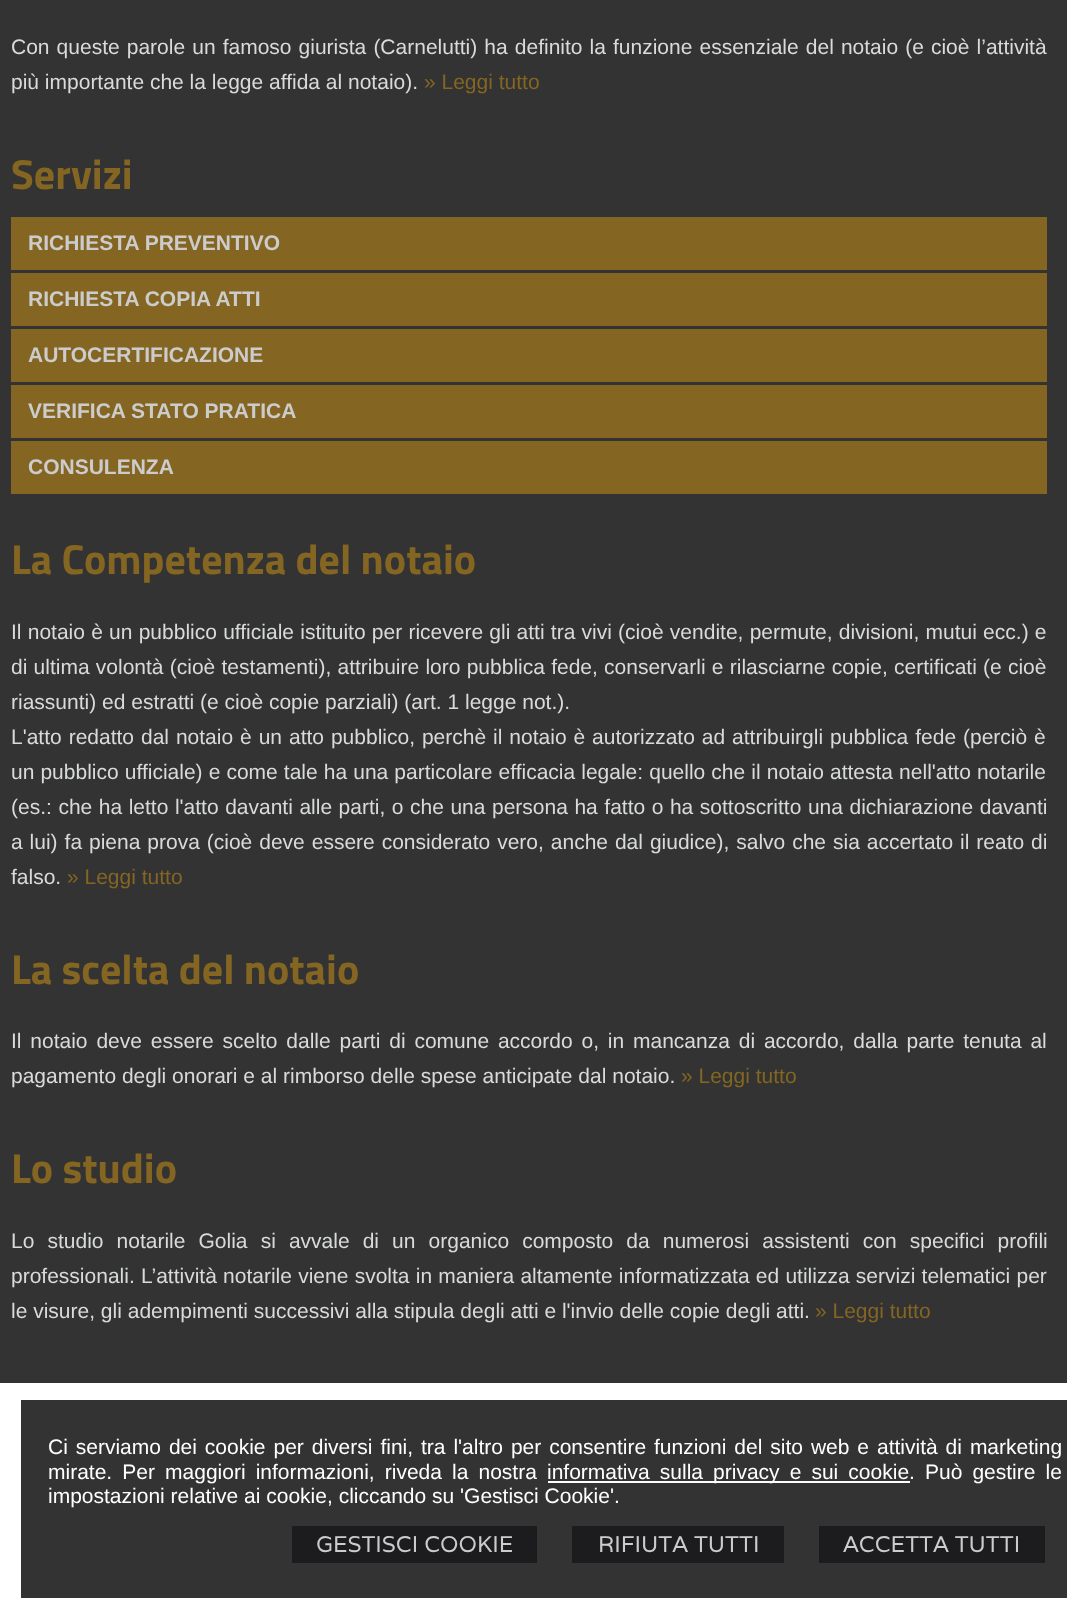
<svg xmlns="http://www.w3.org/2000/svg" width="1067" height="1615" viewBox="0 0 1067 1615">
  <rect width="100%" height="100%" fill="#333"/>
  <path d="M11 217h1036v53H11z" fill="#846622"/>
  <path d="M11 273h1036v53H11z" fill="#846622"/>
  <path d="M11 329h1036v53H11z" fill="#846622"/>
  <path d="M11 385h1036v53H11z" fill="#846622"/>
  <path d="M11 441h1036v53H11z" fill="#846622"/>
  <path d="M0 1383h1067v232H0z" fill="#fff"/>
  <path d="M21 1400h1046v198H21z" fill="#333"/>
  <path d="M548 1481h362v2H548z" fill="#fff"/>
  <path d="M292 1526h245v37H292z" fill="#1c1c1e"/>
  <path d="M572 1526h212v37H572z" fill="#1c1c1e"/>
  <path d="M819 1526h226v37H819z" fill="#1c1c1e"/>
  <g font-family="Liberation Sans" font-size="21" fill="#d9dadb">
    <text x="11" y="54" word-spacing="1.25">Con queste parole un famoso giurista (Carnelutti) ha definito la funzione essenziale del notaio (e cioè l’attività</text>
    <text x="11" y="89">più importante che la legge affida al notaio).</text>
  </g>
  <text x="424" y="89" font-family="Liberation Sans" font-size="21" fill="#846622">» Leggi tutto</text>
  <text x="11" y="189" font-family="Titillium Web" font-size="42" font-weight="bold" fill="#846622">Servizi</text>
  <g font-family="Liberation Sans" font-size="21" font-weight="bold" fill="#ccc">
    <text x="28" y="250">RICHIESTA PREVENTIVO</text>
    <text x="28" y="306">RICHIESTA COPIA ATTI</text>
    <text x="28" y="362">AUTOCERTIFICAZIONE</text>
    <text x="28" y="418">VERIFICA STATO PRATICA</text>
    <text x="28" y="474">CONSULENZA</text>
  </g>
  <text x="11" y="574" font-family="Titillium Web" font-size="42" font-weight="bold" fill="#846622">La Competenza del notaio</text>
  <g font-family="Liberation Sans" font-size="21" fill="#d9dadb">
    <text x="11" y="639" word-spacing="0.4">Il notaio è un pubblico ufficiale istituito per ricevere gli atti tra vivi (cioè vendite, permute, divisioni, mutui ecc.) e</text>
    <text x="11" y="674" word-spacing="0.4">di ultima volontà (cioè testamenti), attribuire loro pubblica fede, conservarli e rilasciarne copie, certificati (e cioè</text>
    <text x="11" y="709">riassunti) ed estratti (e cioè copie parziali) (art. 1 legge not.).</text>
    <text x="11" y="744" word-spacing="1.1">L'atto redatto dal notaio è un atto pubblico, perchè il notaio è autorizzato ad attribuirgli pubblica fede (perciò è</text>
    <text x="11" y="779" word-spacing="0.25">un pubblico ufficiale) e come tale ha una particolare efficacia legale: quello che il notaio attesta nell'atto notarile</text>
    <text x="11" y="814" word-spacing="0.7">(es.: che ha letto l'atto davanti alle parti, o che una persona ha fatto o ha sottoscritto una dichiarazione davanti</text>
    <text x="11" y="849" word-spacing="1.1">a lui) fa piena prova (cioè deve essere considerato vero, anche dal giudice), salvo che sia accertato il reato di</text>
    <text x="11" y="884">falso.</text>
  </g>
  <text x="67" y="884" font-family="Liberation Sans" font-size="21" fill="#846622">» Leggi tutto</text>
  <text x="11" y="984" font-family="Titillium Web" font-size="42" font-weight="bold" fill="#846622">La scelta del notaio</text>
  <g font-family="Liberation Sans" font-size="21" fill="#d9dadb">
    <text x="11" y="1048" word-spacing="3">Il notaio deve essere scelto dalle parti di comune accordo o, in mancanza di accordo, dalla parte tenuta al</text>
    <text x="11" y="1083">pagamento degli onorari e al rimborso delle spese anticipate dal notaio.</text>
  </g>
  <text x="681" y="1083" font-family="Liberation Sans" font-size="21" fill="#846622">» Leggi tutto</text>
  <text x="11" y="1183" font-family="Titillium Web" font-size="42" font-weight="bold" fill="#846622">Lo studio</text>
  <g font-family="Liberation Sans" font-size="21" fill="#d9dadb">
    <text x="11" y="1248" word-spacing="7.25">Lo studio notarile Golia si avvale di un organico composto da numerosi assistenti con specifici profili</text>
    <text x="11" y="1283" word-spacing="0.4">professionali. L’attività notarile viene svolta in maniera altamente informatizzata ed utilizza servizi telematici per</text>
    <text x="11" y="1318">le visure, gli adempimenti successivi alla stipula degli atti e l'invio delle copie degli atti.</text>
  </g>
  <text x="815" y="1318" font-family="Liberation Sans" font-size="21" fill="#846622">» Leggi tutto</text>
  <g font-family="Liberation Sans" font-size="21" fill="#fff">
    <text x="48" y="1454" word-spacing="2.1">Ci serviamo dei cookie per diversi fini, tra l'altro per consentire funzioni del sito web e attività di marketing</text>
    <text x="48" y="1479" word-spacing="4.25">mirate. Per maggiori informazioni, riveda la nostra</text>
    <text x="547" y="1479" word-spacing="4.25">informativa sulla privacy e sui cookie. Può gestire le</text>
    <text x="48" y="1503">impostazioni relative ai cookie, cliccando su 'Gestisci Cookie'.</text>
  </g>
  <g font-family="Varela" font-size="22.75" fill="#ccc">
    <text x="316" y="1552">GESTISCI COOKIE</text>
    <text x="598" y="1552">RIFIUTA TUTTI</text>
    <text x="843" y="1552">ACCETTA TUTTI</text>
  </g>
</svg>
